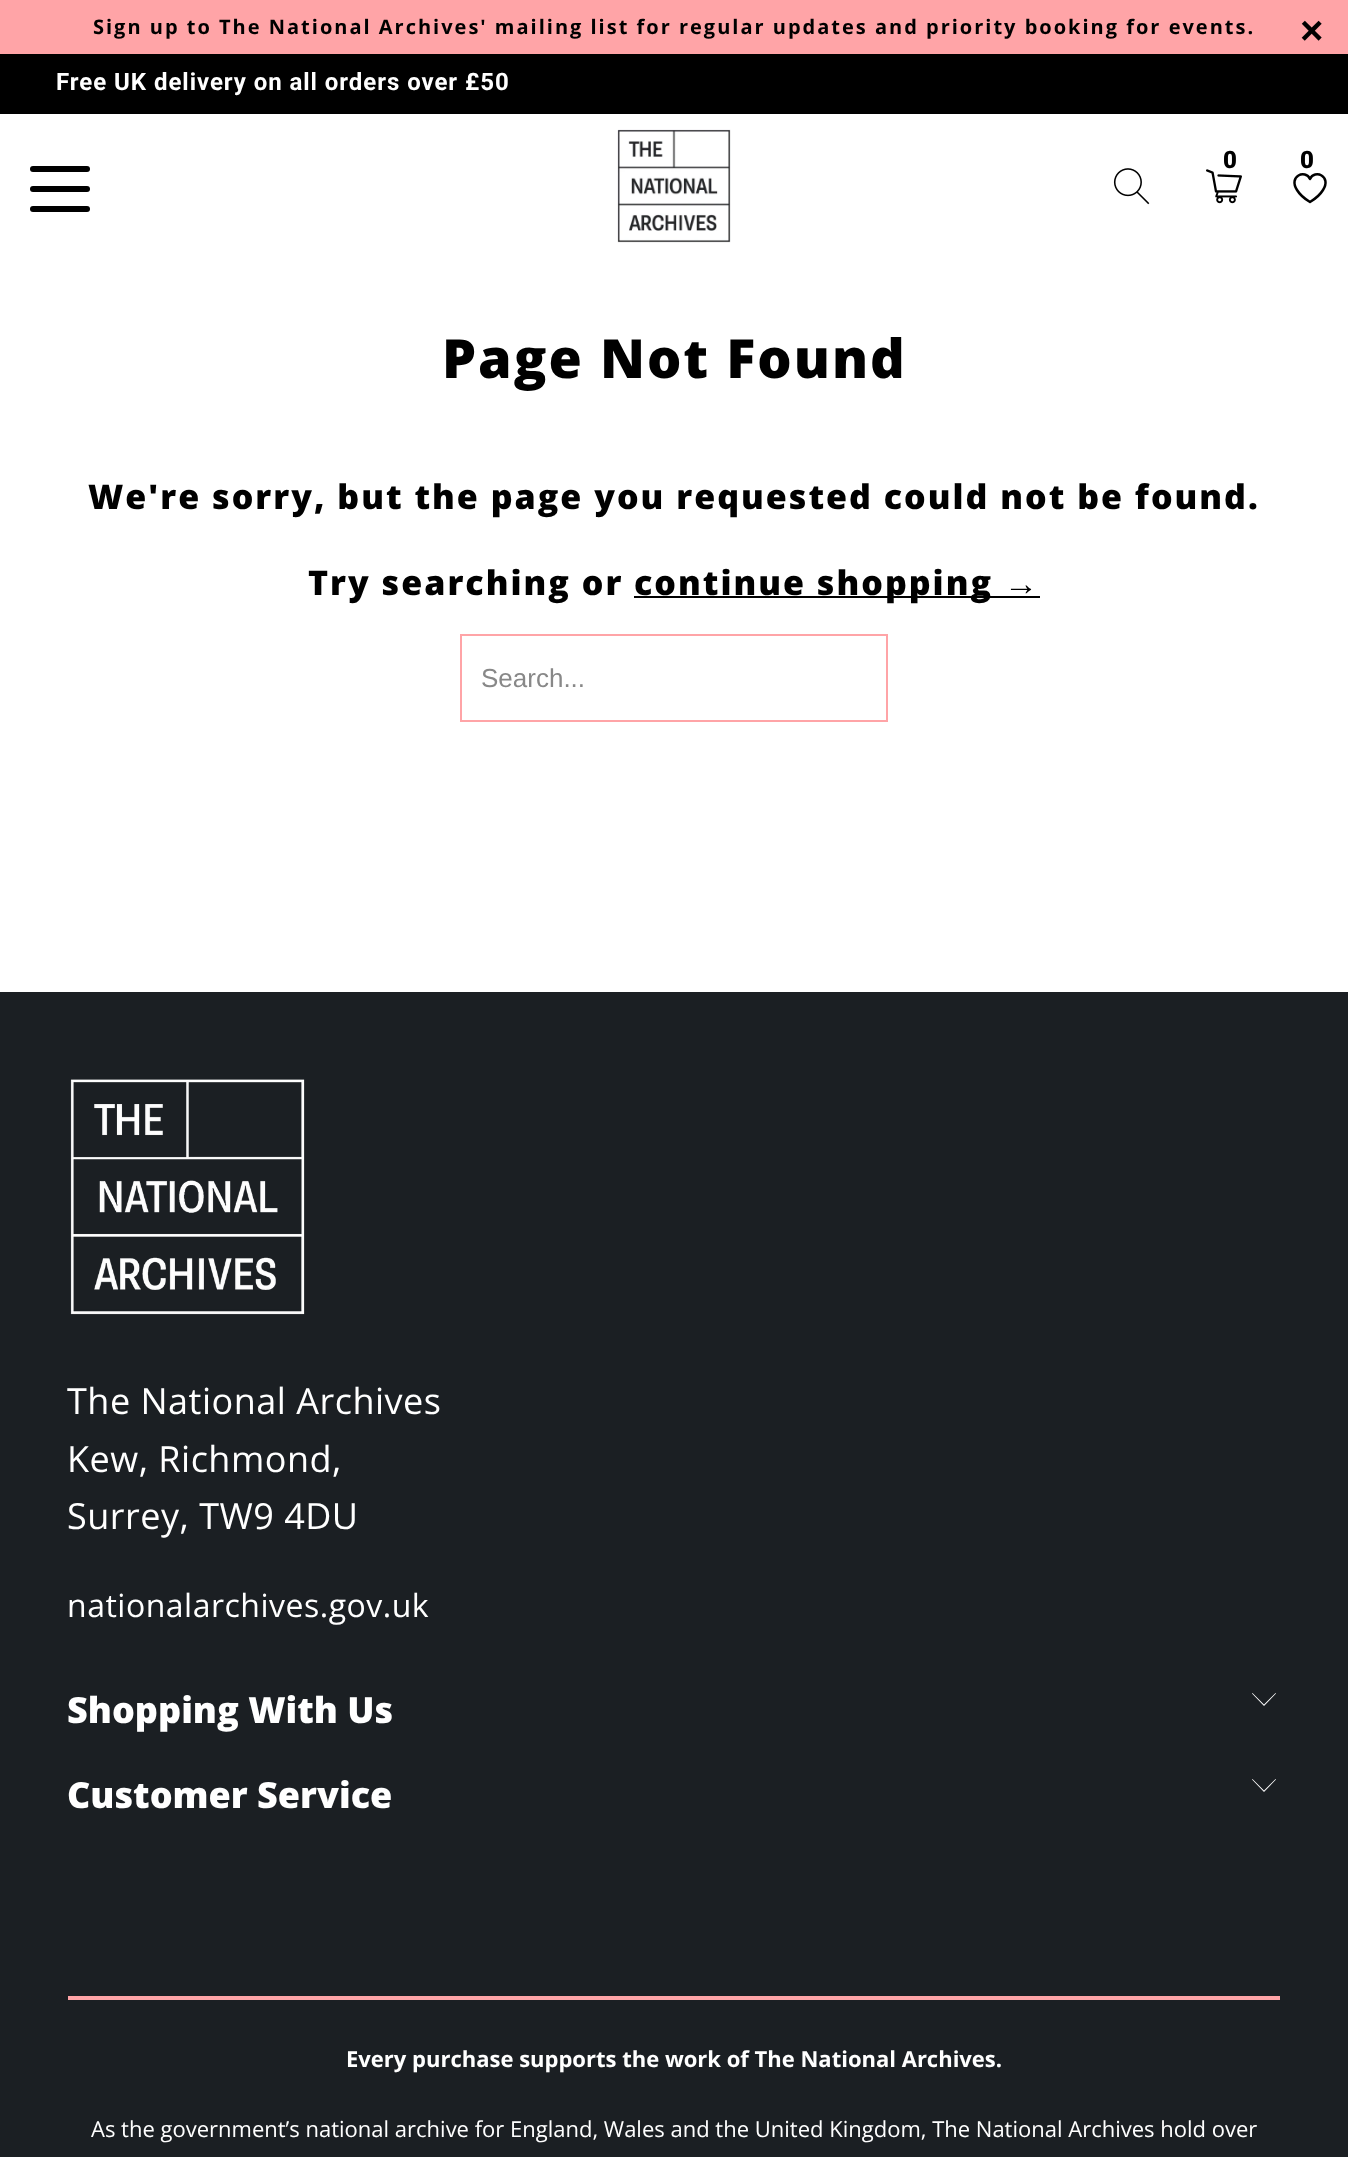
<svg xmlns="http://www.w3.org/2000/svg" width="1348" height="2157" viewBox="0 0 1348 2157">
  <rect width="100%" height="100%" fill="#fff"/>
  <path d="M0 0h1348v54H0z" fill="#ffa4a7"/>
  <path d="M0 54h1348v60H0z" fill="#000"/>
  <image x="617" y="129" width="114" height="114" href="img/1.png"/>
  <image x="1206" y="169" width="36" height="35" href="img/2.png"/>
  <path d="M1310 202C1305 199 1300 195 1297 190C1288 176 1305.5 169 1310 179C1314.5 169 1332 176 1323 190C1320 195 1315 199 1310 202Z" fill="none" stroke="#000" stroke-width="2.5" stroke-linecap="round" stroke-linejoin="round"/>
  <image x="1113" y="168" width="37" height="37" href="img/3.png"/>
  <rect x="30" y="166" width="60" height="6" rx="3" fill="#000"/>
  <rect x="30" y="186" width="60" height="6" rx="3" fill="#000"/>
  <rect x="30" y="206" width="60" height="6" rx="3" fill="#000"/>
  <path d="M634 596h406v2H634z" fill="#000"/>
  <path d="M461 635h426v86H461z" fill="none" stroke="#ffa4a7" stroke-width="2"/>
  <path d="M0 992h1348v1165H0z" fill="#1b1f23"/>
  <image x="70" y="1079" width="235" height="236" href="img/4.png"/>
  <path d="M1264 1706L1252 1693.5L1252.5 1693L1264 1704.5L1275.5 1693L1276 1693.5Z" fill="#fff"/>
  <path d="M1264 1792L1252 1779.5L1252.5 1779L1264 1790.5L1275.5 1779L1276 1779.5Z" fill="#fff"/>
  <path d="M68 1996h1212v4H68z" fill="#ffa4a7"/>
  <text x="93" y="34" font-family="Open Sans" font-size="20" font-weight="bold" letter-spacing="2" fill="#000">Sign up to The National Archives' mailing list for regular updates and priority booking for events.</text>
  <text x="1300" y="44" font-family="Liberation Sans" font-size="40" font-weight="bold" letter-spacing="2" fill="#000">×</text>
  <text x="56" y="90" font-family="Roboto" font-size="24" font-weight="bold" letter-spacing="0.95" fill="#fff">Free UK delivery on all orders over £50</text>
  <g font-family="Roboto" font-size="24" font-weight="900" letter-spacing="2" fill="#000">
    <text x="1223" y="168">0</text>
    <text x="1300" y="168">0</text>
  </g>
  <text x="442" y="378" font-family="Open Sans" font-size="54" font-weight="800" letter-spacing="2" fill="#000">Page Not Found</text>
  <g font-family="Open Sans" font-size="34" font-weight="800" letter-spacing="2" fill="#000">
    <text x="88" y="509">We're sorry, but the page you requested could not be found.</text>
    <text x="308" y="595">Try searching or</text>
    <text x="634" y="595">continue shopping</text>
  </g>
  <text x="1004" y="595" font-family="Liberation Sans" font-size="34" font-weight="bold" letter-spacing="2" fill="#000">→</text>
  <text x="481" y="687" font-family="Liberation Sans" font-size="26" fill="#888">Search...</text>
  <g font-family="Open Sans" font-size="36" letter-spacing="0.5" fill="#fff">
    <text x="67" y="1414">The National Archives</text>
    <text x="67" y="1472">Kew, Richmond,</text>
    <text x="67" y="1529">Surrey, TW9 4DU</text>
  </g>
  <text x="67" y="1617" font-family="Open Sans" font-size="32" letter-spacing="0.5" fill="#fff">nationalarchives.gov.uk</text>
  <g font-family="Open Sans" font-size="36" font-weight="800" fill="#fff">
    <text x="67" y="1723">Shopping With Us</text>
    <text x="67" y="1808">Customer Service</text>
  </g>
  <text x="346" y="2067" font-family="Open Sans" font-size="22" font-weight="bold" fill="#fff">Every purchase supports the work of The National Archives.</text>
  <text x="91" y="2137" font-family="Open Sans" font-size="22" fill="#fff">As the government’s national archive for England, Wales and the United Kingdom, The National Archives hold over</text>
</svg>
